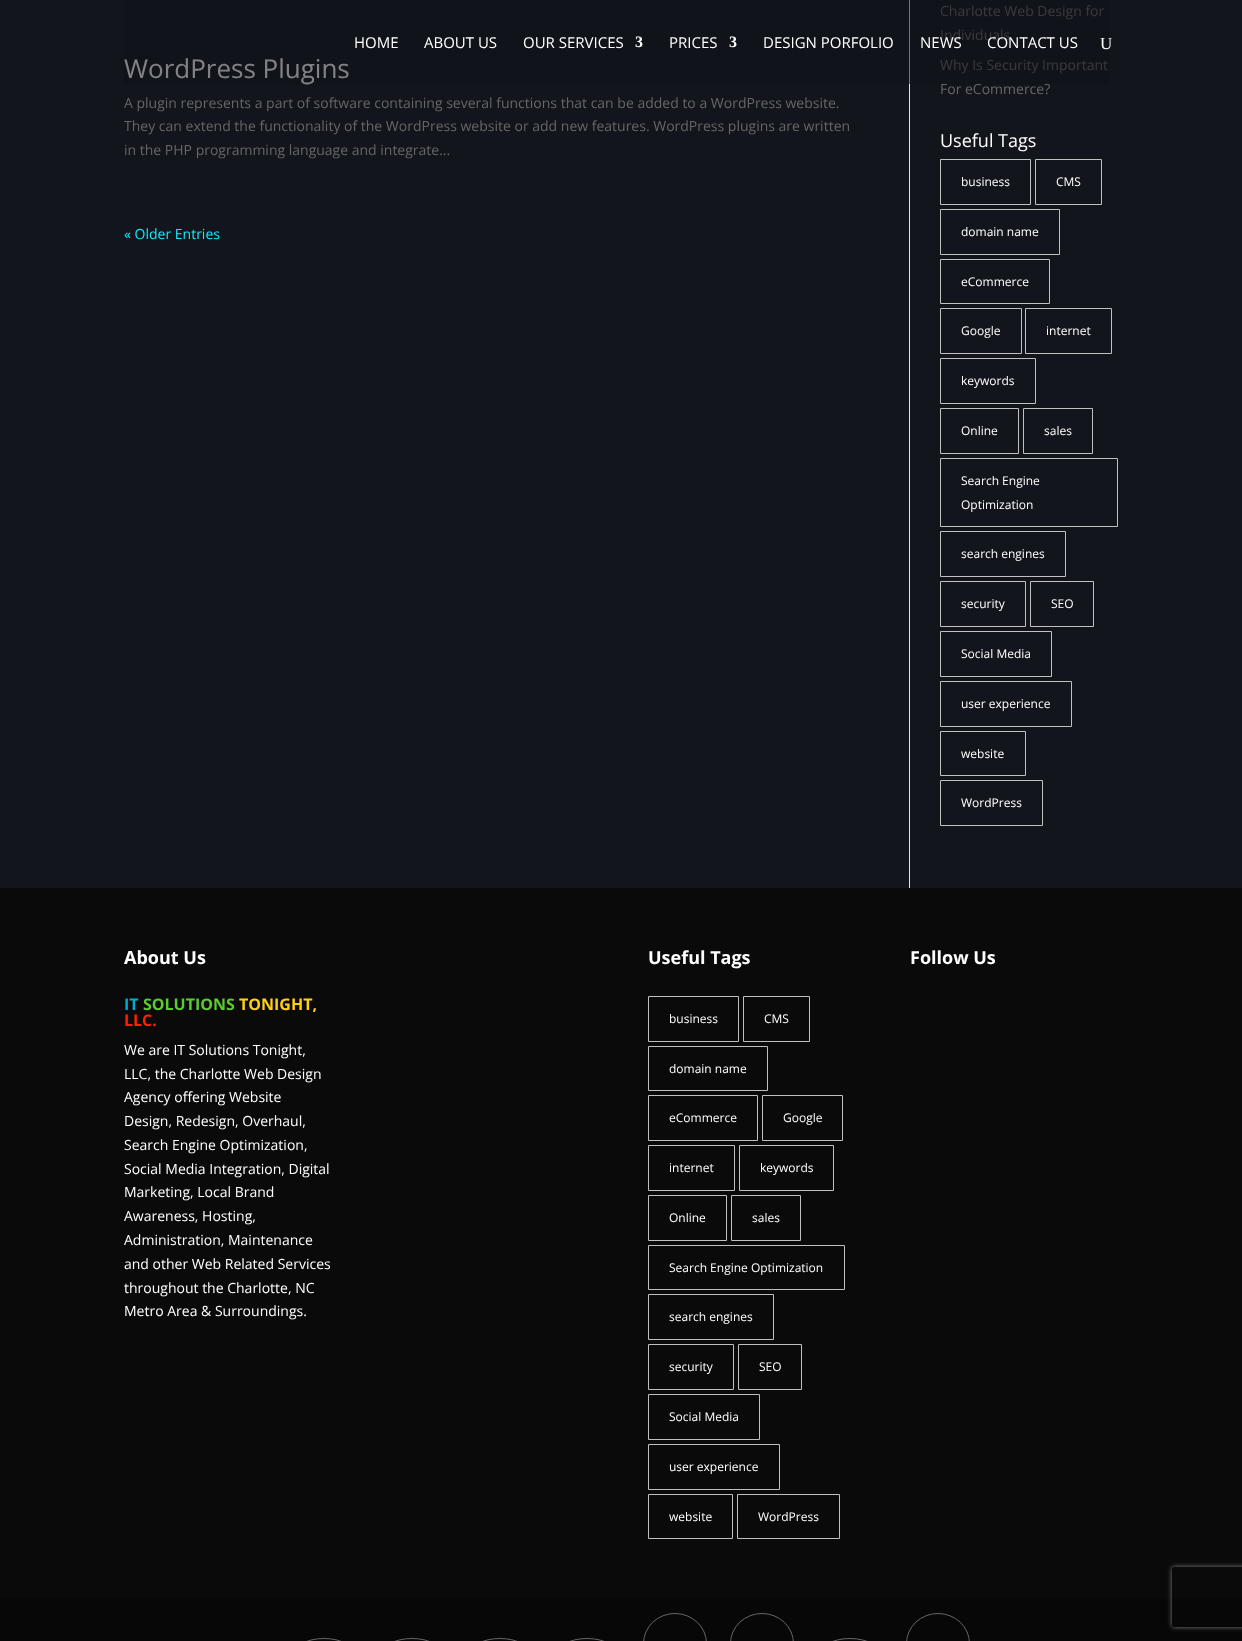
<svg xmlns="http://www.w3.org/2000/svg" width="1242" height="1641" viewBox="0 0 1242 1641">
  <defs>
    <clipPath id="clip1"><path d="M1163 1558H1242V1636H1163ZM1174 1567H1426C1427 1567 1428 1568 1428 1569V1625C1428 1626 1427 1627 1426 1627H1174C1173 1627 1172 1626 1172 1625V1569C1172 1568 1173 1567 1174 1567Z" clip-rule="evenodd"/></clipPath>
  </defs>
  <rect width="100%" height="100%" fill="#13151c"/>
  <path d="M909 0h1v888H909z" fill="#e2e2e2"/>
  <path d="M940.5 159.5h90v45H940.5z" fill="none" stroke="#c0c0c0"/>
  <path d="M1035.5 159.5h66v45H1035.5z" fill="none" stroke="#c0c0c0"/>
  <path d="M940.5 209.5h119v45H940.5z" fill="none" stroke="#c0c0c0"/>
  <path d="M940.5 259.5h109v44H940.5z" fill="none" stroke="#c0c0c0"/>
  <path d="M940.5 308.5h81v45H940.5z" fill="none" stroke="#c0c0c0"/>
  <path d="M1025.5 308.5h86v45H1025.5z" fill="none" stroke="#c0c0c0"/>
  <path d="M940.5 358.5h95v45H940.5z" fill="none" stroke="#c0c0c0"/>
  <path d="M940.5 408.5h78v45H940.5z" fill="none" stroke="#c0c0c0"/>
  <path d="M1023.5 408.5h69v45H1023.5z" fill="none" stroke="#c0c0c0"/>
  <path d="M940.5 458.5h177v68H940.5z" fill="none" stroke="#c0c0c0"/>
  <path d="M940.5 531.5h125v45H940.5z" fill="none" stroke="#c0c0c0"/>
  <path d="M940.5 581.5h85v45H940.5z" fill="none" stroke="#c0c0c0"/>
  <path d="M1030.5 581.5h63v45H1030.5z" fill="none" stroke="#c0c0c0"/>
  <path d="M940.5 631.5h111v45H940.5z" fill="none" stroke="#c0c0c0"/>
  <path d="M940.5 681.5h131v45H940.5z" fill="none" stroke="#c0c0c0"/>
  <path d="M940.5 731.5h85v44H940.5z" fill="none" stroke="#c0c0c0"/>
  <path d="M940.5 780.5h102v45H940.5z" fill="none" stroke="#c0c0c0"/>
  <path d="M0 888h1242v710H0z" fill="#0a0a0a"/>
  <path d="M648.5 996.5h90v45H648.5z" fill="none" stroke="#c0c0c0"/>
  <path d="M743.5 996.5h66v45H743.5z" fill="none" stroke="#c0c0c0"/>
  <path d="M648.5 1046.5h119v44H648.5z" fill="none" stroke="#c0c0c0"/>
  <path d="M648.5 1095.5h109v45H648.5z" fill="none" stroke="#c0c0c0"/>
  <path d="M762.5 1095.5h80v45H762.5z" fill="none" stroke="#c0c0c0"/>
  <path d="M648.5 1145.5h86v45H648.5z" fill="none" stroke="#c0c0c0"/>
  <path d="M739.5 1145.5h94v45H739.5z" fill="none" stroke="#c0c0c0"/>
  <path d="M648.5 1195.5h78v45H648.5z" fill="none" stroke="#c0c0c0"/>
  <path d="M731.5 1195.5h69v45H731.5z" fill="none" stroke="#c0c0c0"/>
  <path d="M648.5 1245.5h196v44H648.5z" fill="none" stroke="#c0c0c0"/>
  <path d="M648.5 1294.5h125v45H648.5z" fill="none" stroke="#c0c0c0"/>
  <path d="M648.5 1344.5h85v45H648.5z" fill="none" stroke="#c0c0c0"/>
  <path d="M738.5 1344.5h63v45H738.5z" fill="none" stroke="#c0c0c0"/>
  <path d="M648.5 1394.5h111v45H648.5z" fill="none" stroke="#c0c0c0"/>
  <path d="M648.5 1444.5h131v45H648.5z" fill="none" stroke="#c0c0c0"/>
  <path d="M648.5 1494.5h84v44H648.5z" fill="none" stroke="#c0c0c0"/>
  <path d="M737.5 1494.5h102v44H737.5z" fill="none" stroke="#c0c0c0"/>
  <path d="M0 1598h1242v43H0z" fill="#070707"/>
  <rect x="292.5" y="1638.5" width="63" height="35" rx="31.5" fill="none" stroke="#666"/>
  <rect x="380.5" y="1638.5" width="63" height="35" rx="31.5" fill="none" stroke="#666"/>
  <rect x="468.5" y="1638.5" width="63" height="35" rx="31.5" fill="none" stroke="#666"/>
  <rect x="555.5" y="1638.5" width="63" height="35" rx="31.5" fill="none" stroke="#666"/>
  <rect x="643.5" y="1613.5" width="63" height="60" rx="31.5" fill="none" stroke="#666"/>
  <rect x="730.5" y="1613.5" width="63" height="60" rx="31.5" fill="none" stroke="#666"/>
  <rect x="818.5" y="1638.5" width="63" height="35" rx="31.5" fill="none" stroke="#666"/>
  <rect x="906.5" y="1613.5" width="63" height="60" rx="31.5" fill="none" stroke="#666"/>
  <g clip-path="url(#clip1)">
    <rect x="1172" y="1567" width="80" height="60" rx="2" fill="#808080" filter="blur(2.5px)"/>
  </g>
  <text x="124" y="78" font-family="Open Sans" font-size="26" fill="#fff">WordPress Plugins</text>
  <g font-family="Open Sans" font-size="14" fill="#666">
    <text x="124" y="108">A plugin represents a part of software containing several functions that can be added to a WordPress website.</text>
    <text x="124" y="131">They can extend the functionality of the WordPress website or add new features. WordPress plugins are written</text>
    <text x="124" y="155">in the PHP programming language and integrate...</text>
  </g>
  <text x="124" y="239" font-family="Open Sans" font-size="14" fill="#0febff">« Older Entries</text>
  <g font-family="Open Sans" font-size="14" fill="#666">
    <text x="940" y="16">Charlotte Web Design for</text>
    <text x="940" y="40">Individuals</text>
    <text x="940" y="70">Why Is Security Important</text>
    <text x="940" y="94">For eCommerce?</text>
  </g>
  <text x="940" y="147" font-family="Open Sans" font-size="18" fill="#fff">Useful Tags</text>
  <g font-family="Open Sans" font-size="12" fill="#fff">
    <text x="961" y="186">business</text>
    <text x="1056" y="186">CMS</text>
    <text x="961" y="236">domain name</text>
    <text x="961" y="286">eCommerce</text>
    <text x="961" y="335">Google</text>
    <text x="1046" y="335">internet</text>
    <text x="961" y="385">keywords</text>
    <text x="961" y="435">Online</text>
    <text x="1044" y="435">sales</text>
    <text x="961" y="485">Search Engine</text>
    <text x="961" y="509">Optimization</text>
    <text x="961" y="558">search engines</text>
    <text x="961" y="608">security</text>
    <text x="1051" y="608">SEO</text>
    <text x="961" y="658">Social Media</text>
    <text x="961" y="708">user experience</text>
    <text x="961" y="758">website</text>
    <text x="961" y="807">WordPress</text>
  </g>
  <text x="124" y="964" font-family="Open Sans" font-size="18" font-weight="bold" fill="#fff">About Us</text>
  <text x="124" y="1010" font-family="Open Sans" font-size="16" font-weight="bold" fill="#01abce">IT</text>
  <text x="143" y="1010" font-family="Open Sans" font-size="16" font-weight="bold" fill="#5bcc2e">SOLUTIONS</text>
  <text x="239" y="1010" font-family="Open Sans" font-size="16" font-weight="bold" fill="#ffcf11">TONIGHT,</text>
  <text x="124" y="1026" font-family="Open Sans" font-size="16" font-weight="bold" fill="#ff2001">LLC.</text>
  <g font-family="Open Sans" font-size="14" fill="#fff">
    <text x="124" y="1055">We are IT Solutions Tonight,</text>
    <text x="124" y="1079">LLC, the Charlotte Web Design</text>
    <text x="124" y="1102">Agency offering Website</text>
    <text x="124" y="1126">Design, Redesign, Overhaul,</text>
    <text x="124" y="1150">Search Engine Optimization,</text>
    <text x="124" y="1174">Social Media Integration, Digital</text>
    <text x="124" y="1197">Marketing, Local Brand</text>
    <text x="124" y="1221">Awareness, Hosting,</text>
    <text x="124" y="1245">Administration, Maintenance</text>
    <text x="124" y="1269">and other Web Related Services</text>
    <text x="124" y="1293">throughout the Charlotte, NC</text>
    <text x="124" y="1316">Metro Area &amp; Surroundings.</text>
  </g>
  <text x="648" y="964" font-family="Open Sans" font-size="18" font-weight="bold" fill="#fff">Useful Tags</text>
  <g font-family="Open Sans" font-size="12" fill="#fff">
    <text x="669" y="1023">business</text>
    <text x="764" y="1023">CMS</text>
    <text x="669" y="1073">domain name</text>
    <text x="669" y="1122">eCommerce</text>
    <text x="783" y="1122">Google</text>
    <text x="669" y="1172">internet</text>
    <text x="760" y="1172">keywords</text>
    <text x="669" y="1222">Online</text>
    <text x="752" y="1222">sales</text>
    <text x="669" y="1272">Search Engine Optimization</text>
    <text x="669" y="1321">search engines</text>
    <text x="669" y="1371">security</text>
    <text x="759" y="1371">SEO</text>
    <text x="669" y="1421">Social Media</text>
    <text x="669" y="1471">user experience</text>
    <text x="669" y="1521">website</text>
    <text x="758" y="1521">WordPress</text>
  </g>
  <text x="910" y="964" font-family="Open Sans" font-size="18" font-weight="bold" fill="#fff">Follow Us</text>
  <path d="M124 0h985v84H124z" fill="#11131a87"/>
  <g font-family="Open Sans" font-size="15" fill="#fff">
    <text x="354" y="48">HOME</text>
    <text x="424" y="48">ABOUT US</text>
    <text x="523" y="48">OUR SERVICES</text>
  </g>
  <text x="635" y="47" font-family="Liberation Serif" font-size="16" font-weight="bold" fill="#fff">3</text>
  <text x="669" y="48" font-family="Open Sans" font-size="15" fill="#fff">PRICES</text>
  <text x="729" y="47" font-family="Liberation Serif" font-size="16" font-weight="bold" fill="#fff">3</text>
  <g font-family="Open Sans" font-size="15" fill="#fff">
    <text x="763" y="48">DESIGN PORFOLIO</text>
    <text x="920" y="48">NEWS</text>
    <text x="987" y="48">CONTACT US</text>
  </g>
  <text x="1100" y="49" font-family="Liberation Serif" font-size="17" fill="#fff">U</text>
</svg>
